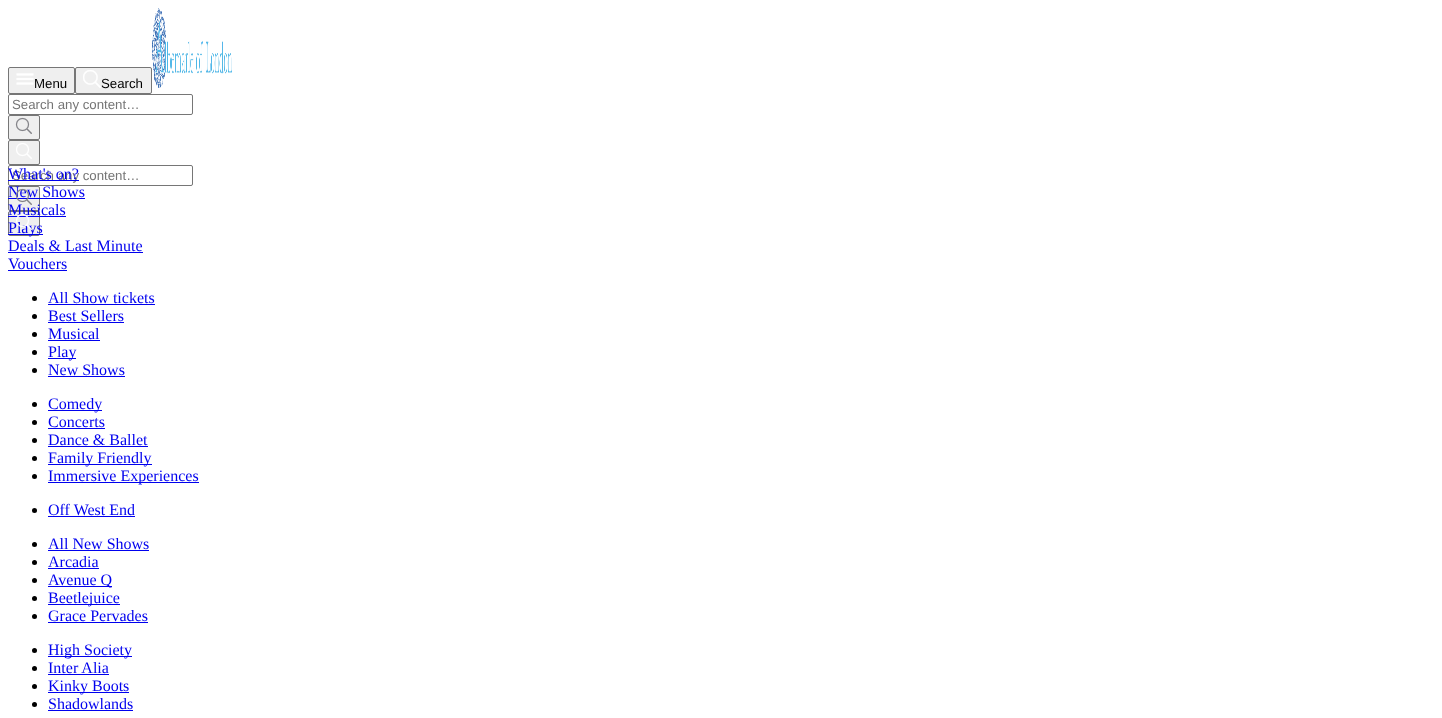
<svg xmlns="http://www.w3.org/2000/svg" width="1442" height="718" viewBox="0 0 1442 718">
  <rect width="100%" height="100%" fill="#fff"/>
  <rect x="8.5" y="67.5" width="66" height="26" rx="1.5" fill="#efefef" stroke="#767676"/>
  <image x="16" y="73" width="18" height="12" href="img/1.png"/>
  <rect x="75.5" y="67.5" width="76" height="26" rx="1.5" fill="#efefef" stroke="#767676"/>
  <image x="83" y="70" width="18" height="18" href="img/2.png"/>
  <image x="152" y="8" width="80" height="80" href="img/3.png"/>
  <rect x="8.5" y="94.5" width="184" height="20" rx="1.5" fill="none" stroke="#767676"/>
  <rect x="8.5" y="115.5" width="31" height="24" rx="1.5" fill="#efefef" stroke="#767676"/>
  <image x="15" y="117" width="17" height="17" href="img/4.png"/>
  <rect x="8.5" y="140.5" width="31" height="24" rx="1.5" fill="#efefef" stroke="#767676"/>
  <image x="16" y="143" width="16" height="16" href="img/5.png"/>
  <rect x="8.5" y="165.5" width="184" height="20" rx="1.5" fill="none" stroke="#767676"/>
  <rect x="8.5" y="186.5" width="31" height="24" rx="1.5" fill="#efefef" stroke="#767676"/>
  <rect x="8.5" y="211.5" width="31" height="24" rx="1.5" fill="#efefef" stroke="#767676"/>
  <path d="M8 198h77v1H8z" fill="#00e"/>
  <path d="M8 216h58v1H8z" fill="#00e"/>
  <path d="M8 234h35v1H8z" fill="#00e"/>
  <path d="M8 252h135v1H8z" fill="#00e"/>
  <path d="M8 270h59v1H8z" fill="#00e"/>
  <circle cx="34.5" cy="298.5" r="2.5" fill="#000"/>
  <path d="M48 304h107v1H48z" fill="#00e"/>
  <circle cx="34.5" cy="316.5" r="2.5" fill="#000"/>
  <path d="M48 322h76v1H48z" fill="#00e"/>
  <circle cx="34.5" cy="334.5" r="2.5" fill="#000"/>
  <path d="M48 340h52v1H48z" fill="#00e"/>
  <circle cx="34.5" cy="352.5" r="2.5" fill="#000"/>
  <path d="M48 358h28v1H48z" fill="#00e"/>
  <circle cx="34.5" cy="370.5" r="2.5" fill="#000"/>
  <path d="M48 376h77v1H48z" fill="#00e"/>
  <circle cx="34.5" cy="404.5" r="2.5" fill="#000"/>
  <path d="M48 410h54v1H48z" fill="#00e"/>
  <circle cx="34.5" cy="422.5" r="2.5" fill="#000"/>
  <path d="M48 428h57v1H48z" fill="#00e"/>
  <circle cx="34.5" cy="440.5" r="2.5" fill="#000"/>
  <path d="M48 446h100v1H48z" fill="#00e"/>
  <circle cx="34.5" cy="458.5" r="2.5" fill="#000"/>
  <path d="M48 464h104v1H48z" fill="#00e"/>
  <circle cx="34.5" cy="476.5" r="2.5" fill="#000"/>
  <path d="M48 482h151v1H48z" fill="#00e"/>
  <circle cx="34.5" cy="510.5" r="2.5" fill="#000"/>
  <path d="M48 516h87v1H48z" fill="#00e"/>
  <circle cx="34.5" cy="544.5" r="2.5" fill="#000"/>
  <path d="M48 550h101v1H48z" fill="#00e"/>
  <circle cx="34.5" cy="562.5" r="2.5" fill="#000"/>
  <path d="M48 568h51v1H48z" fill="#00e"/>
  <circle cx="34.5" cy="580.5" r="2.5" fill="#000"/>
  <path d="M48 586h64v1H48z" fill="#00e"/>
  <circle cx="34.5" cy="598.5" r="2.5" fill="#000"/>
  <path d="M48 604h72v1H48z" fill="#00e"/>
  <circle cx="34.5" cy="616.5" r="2.5" fill="#000"/>
  <path d="M48 622h100v1H48z" fill="#00e"/>
  <circle cx="34.5" cy="650.5" r="2.5" fill="#000"/>
  <path d="M48 656h84v1H48z" fill="#00e"/>
  <circle cx="34.5" cy="668.5" r="2.5" fill="#000"/>
  <path d="M48 674h61v1H48z" fill="#00e"/>
  <circle cx="34.5" cy="686.5" r="2.5" fill="#000"/>
  <path d="M48 692h81v1H48z" fill="#00e"/>
  <circle cx="34.5" cy="704.5" r="2.5" fill="#000"/>
  <path d="M48 710h85v1H48z" fill="#00e"/>
  <g font-family="Liberation Sans" font-size="13.25" fill="#000">
    <text x="34" y="88">Menu</text>
    <text x="101" y="88">Search</text>
  </g>
  <g font-family="Liberation Sans" font-size="13.25" fill="#757575">
    <text x="12" y="109">Search any content…</text>
    <text x="12" y="180">Search any content…</text>
  </g>
  <text x="8" y="179" font-family="Liberation Serif" font-size="16" fill="#00e">What's on?</text>
  <path d="M8 180h71v1H8z" fill="#00e"/>
  <g font-family="Liberation Serif" font-size="16" fill="#00e">
    <text x="8" y="197">New Shows</text>
    <text x="8" y="215">Musicals</text>
  </g>
  <image x="15" y="188" width="17" height="17" href="img/6.png"/>
  <text x="8" y="233" font-family="Liberation Serif" font-size="16" fill="#00e">Plays</text>
  <image x="16" y="213" width="16" height="18" href="img/7.png"/>
  <g font-family="Liberation Serif" font-size="16" fill="#00e">
    <text x="8" y="251">Deals &amp; Last Minute</text>
    <text x="8" y="269">Vouchers</text>
    <text x="48" y="303">All Show tickets</text>
    <text x="48" y="321">Best Sellers</text>
    <text x="48" y="339">Musical</text>
    <text x="48" y="357">Play</text>
    <text x="48" y="375">New Shows</text>
    <text x="48" y="409">Comedy</text>
    <text x="48" y="427">Concerts</text>
    <text x="48" y="445">Dance &amp; Ballet</text>
    <text x="48" y="463">Family Friendly</text>
    <text x="48" y="481">Immersive Experiences</text>
    <text x="48" y="515">Off West End</text>
    <text x="48" y="549">All New Shows</text>
    <text x="48" y="567">Arcadia</text>
    <text x="48" y="585">Avenue Q</text>
    <text x="48" y="603">Beetlejuice</text>
    <text x="48" y="621">Grace Pervades</text>
    <text x="48" y="655">High Society</text>
    <text x="48" y="673">Inter Alia</text>
    <text x="48" y="691">Kinky Boots</text>
    <text x="48" y="709">Shadowlands</text>
  </g>
</svg>
